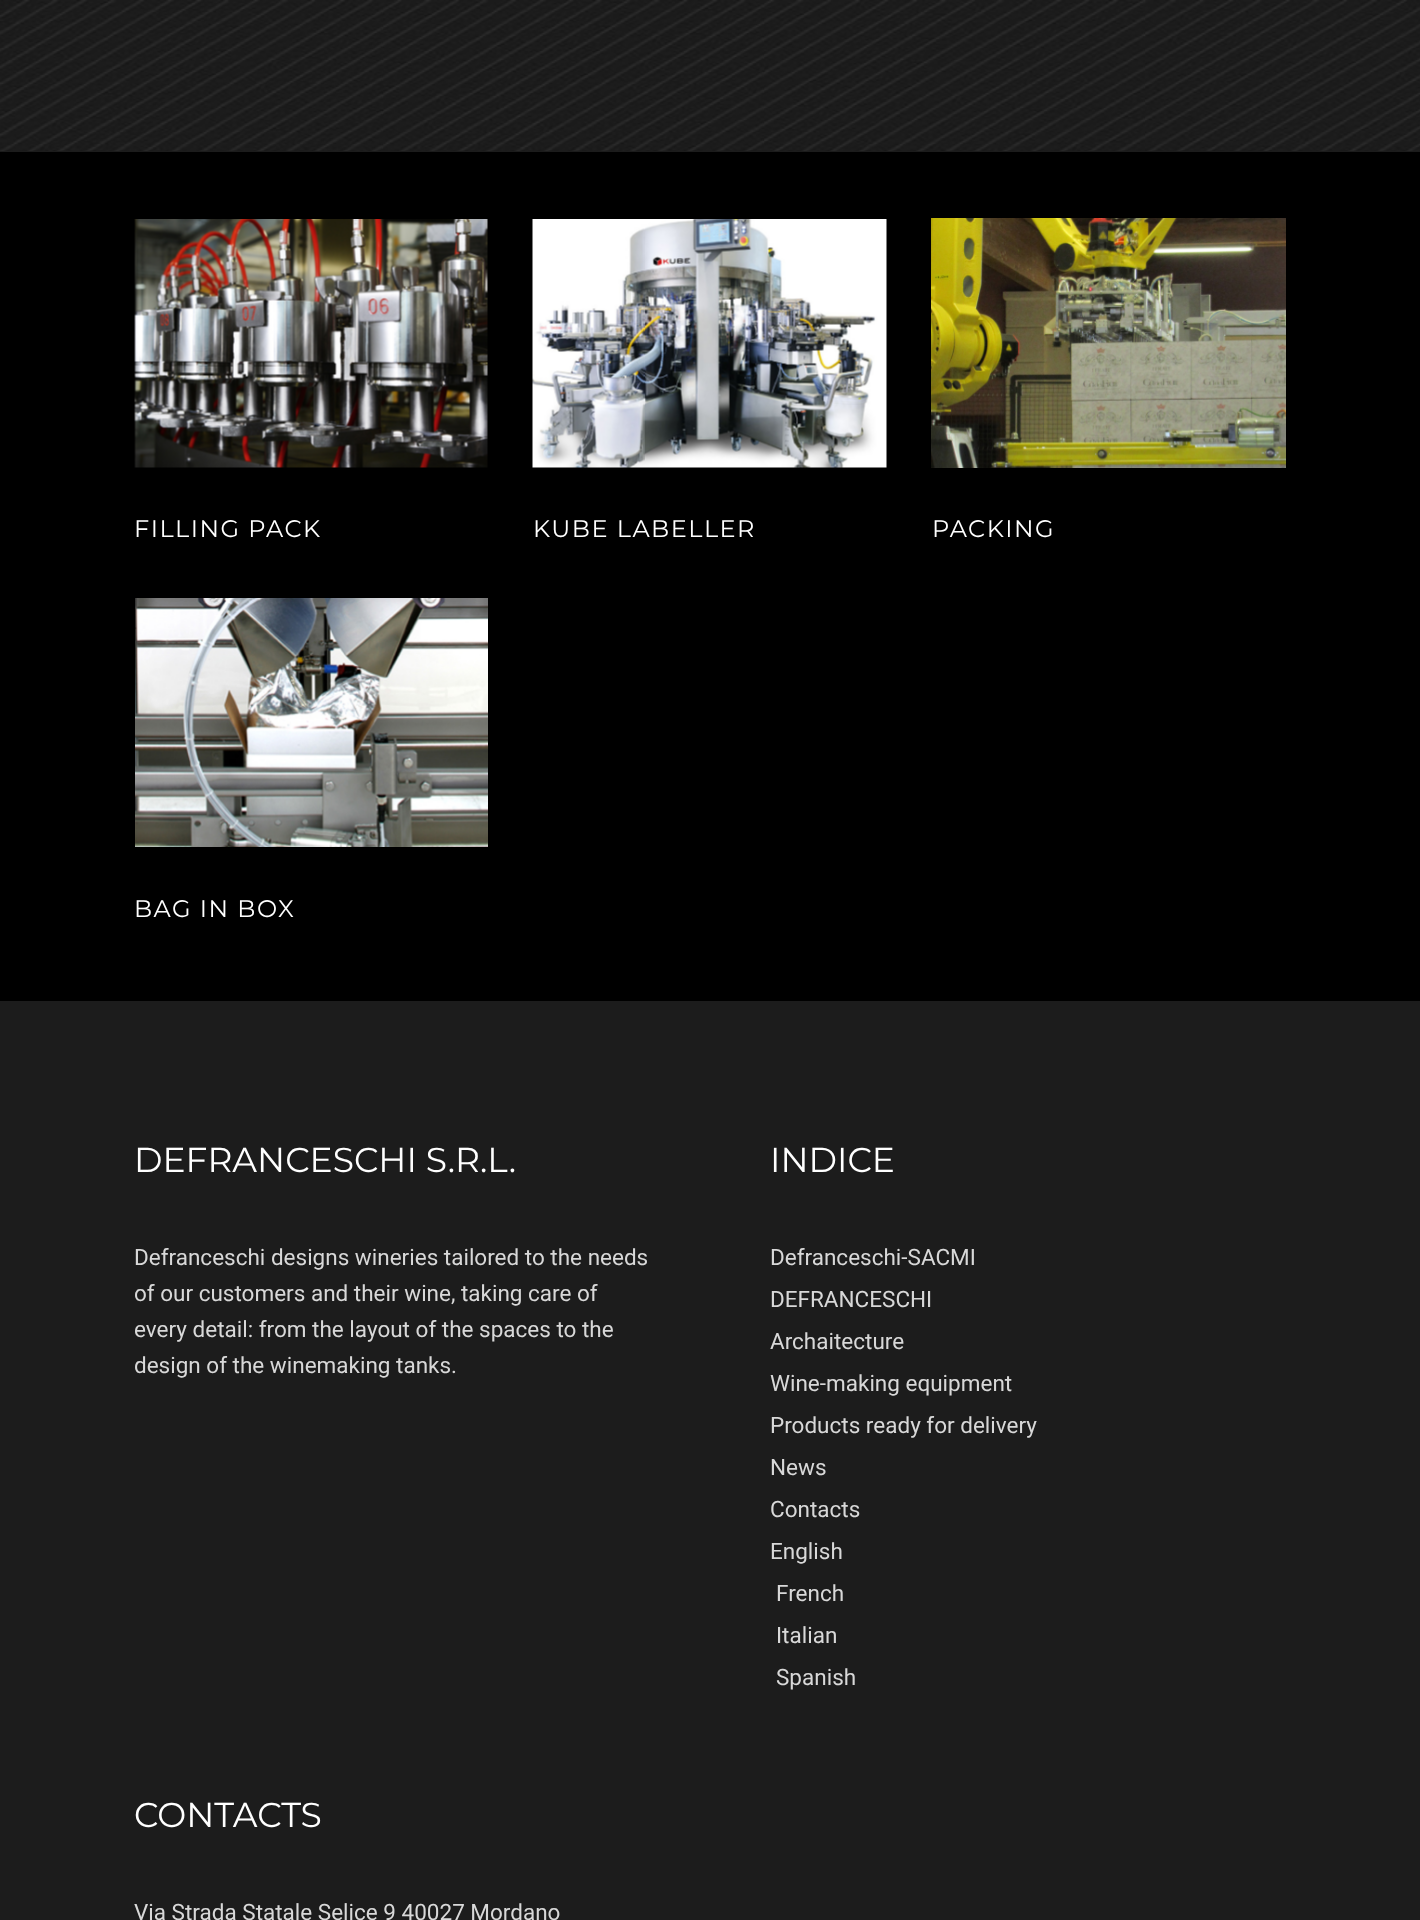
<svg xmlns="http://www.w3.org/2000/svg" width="1420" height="1920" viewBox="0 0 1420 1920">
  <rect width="100%" height="100%" fill="#000"/>
  <path d="M0 151h1420v1H0z" fill="#1c1c1c"/>
  <image x="0" y="0" width="1420" height="151" href="img/1.png"/>
  <image x="134" y="219" width="354" height="249" href="img/2.png"/>
  <image x="532" y="219" width="355" height="249" href="img/3.png"/>
  <image x="931" y="218" width="355" height="250" href="img/4.png"/>
  <image x="135" y="598" width="353" height="249" href="img/5.png"/>
  <path d="M0 1001h1420v919H0z" fill="#1c1c1c"/>
  <g font-family="Montserrat" font-size="24" letter-spacing="1.5" fill="#fff">
    <text x="134" y="537">FILLING PACK</text>
    <text x="533" y="537">KUBE LABELLER</text>
    <text x="932" y="537">PACKING</text>
    <text x="134" y="917">BAG IN BOX</text>
  </g>
  <text x="134" y="1172" font-family="Montserrat" font-size="34.5" fill="#fff">DEFRANCESCHI S.R.L.</text>
  <g font-family="Roboto" font-size="22.5" fill="#d8d8d8">
    <text x="134" y="1265">Defranceschi designs wineries tailored to the needs</text>
    <text x="134" y="1301">of our customers and their wine, taking care of</text>
    <text x="134" y="1337">every detail: from the layout of the spaces to the</text>
    <text x="134" y="1373">design of the winemaking tanks.</text>
  </g>
  <text x="770" y="1172" font-family="Montserrat" font-size="34.5" fill="#fff">INDICE</text>
  <g font-family="Roboto" font-size="22.5" fill="#d8d8d8">
    <text x="770" y="1265">Defranceschi-SACMI</text>
    <text x="770" y="1307">DEFRANCESCHI</text>
    <text x="770" y="1349">Archaitecture</text>
    <text x="770" y="1391">Wine-making equipment</text>
    <text x="770" y="1433">Products ready for delivery</text>
    <text x="770" y="1475">News</text>
    <text x="770" y="1517">Contacts</text>
    <text x="770" y="1559">English</text>
    <text x="776" y="1601">French</text>
    <text x="776" y="1643">Italian</text>
    <text x="776" y="1685">Spanish</text>
  </g>
  <text x="134" y="1827" font-family="Montserrat" font-size="34.5" fill="#fff">CONTACTS</text>
  <text x="134" y="1920" font-family="Roboto" font-size="22.5" fill="#d8d8d8">Via Strada Statale Selice 9 40027 Mordano</text>
</svg>
